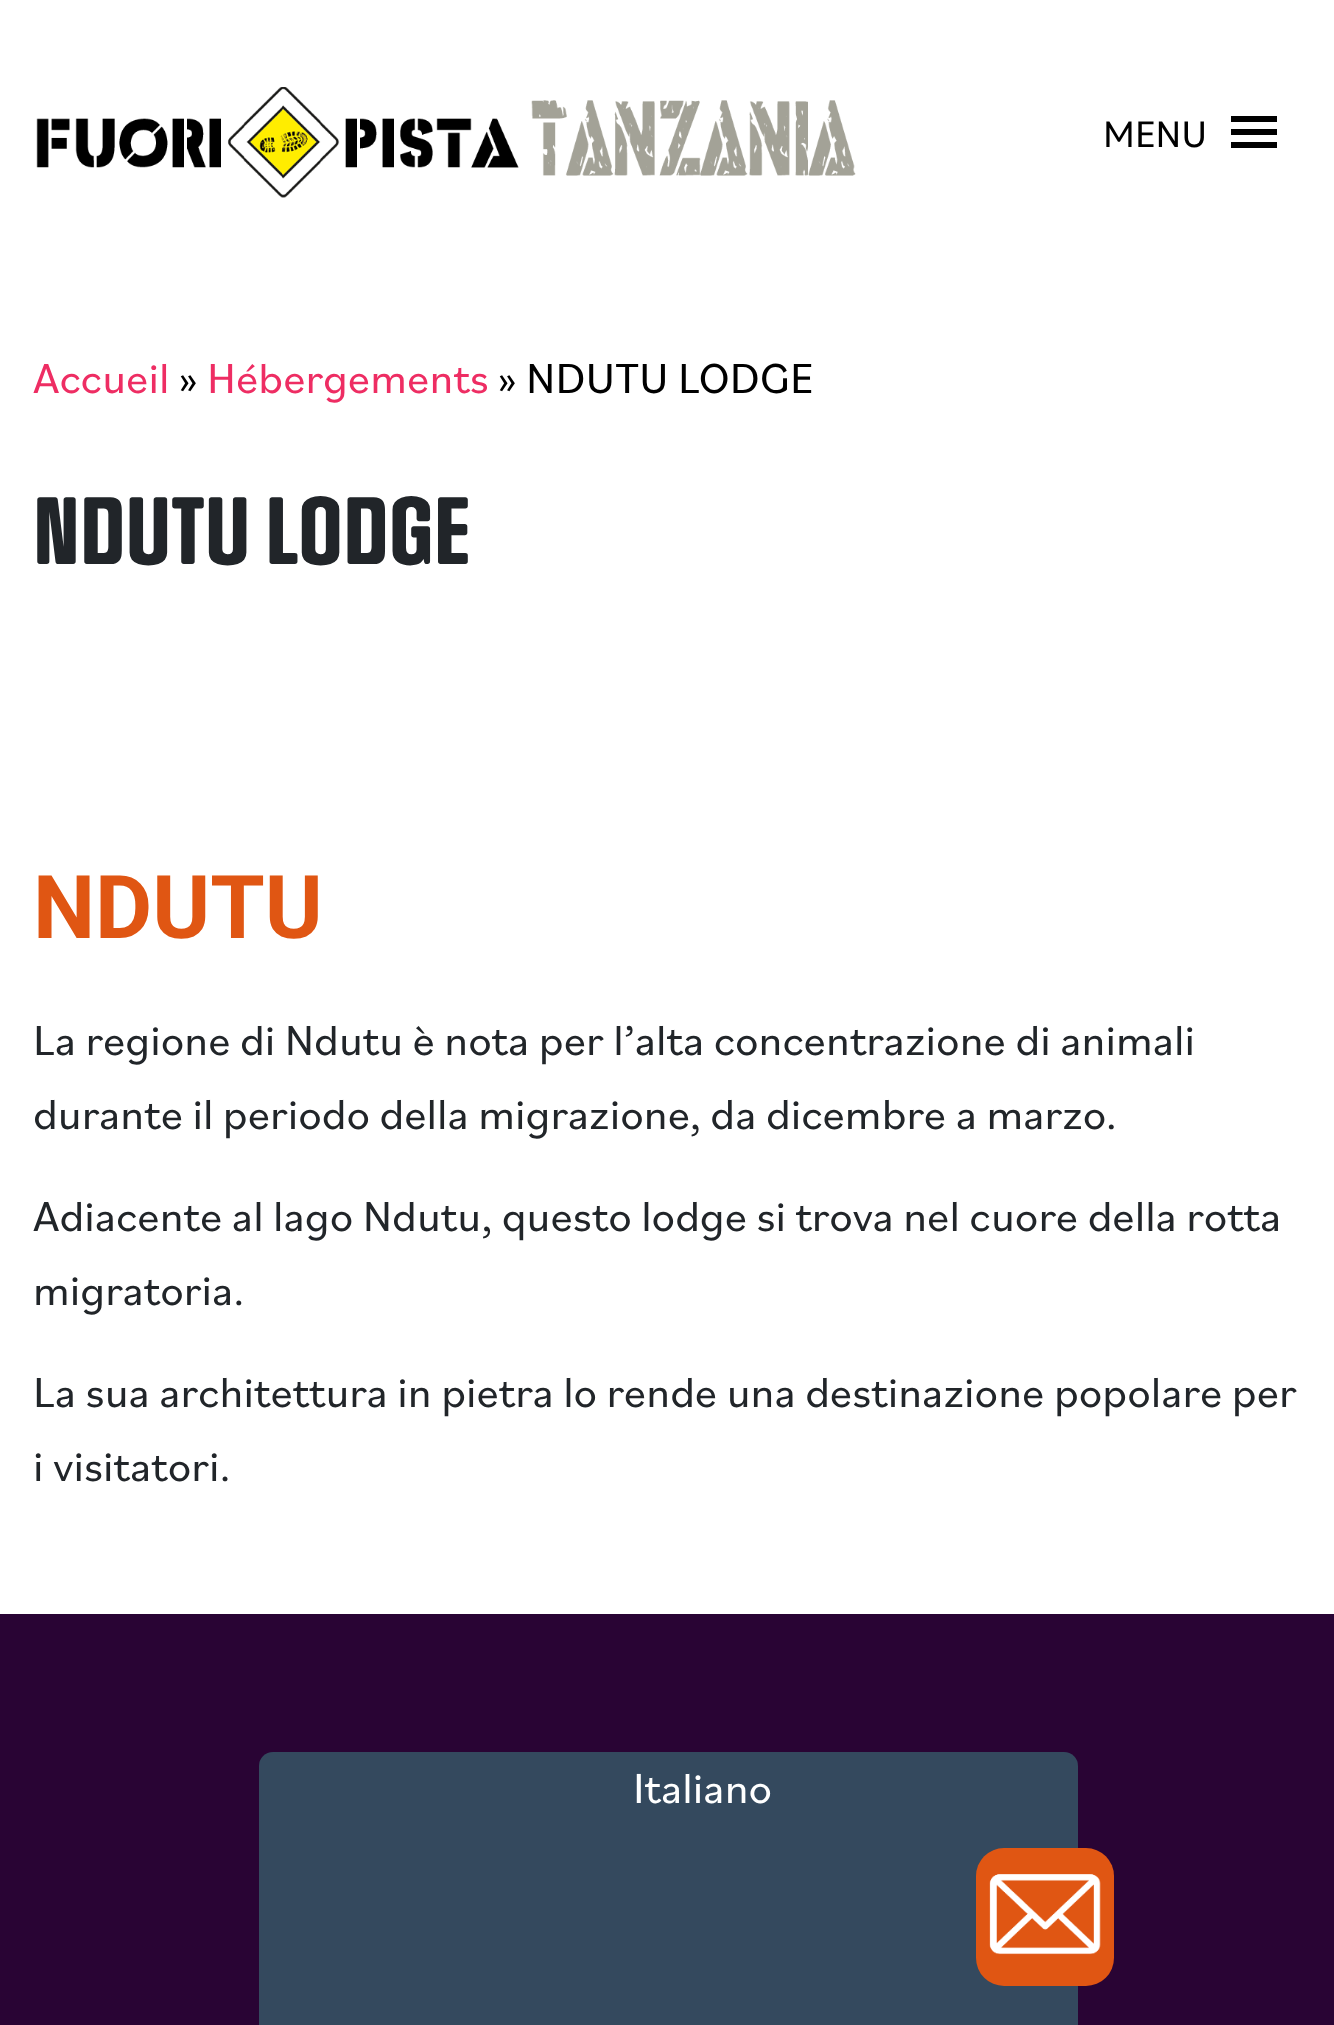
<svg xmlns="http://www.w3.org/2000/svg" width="1334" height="2025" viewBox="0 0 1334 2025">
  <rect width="100%" height="100%" fill="#fff"/>
  <image x="36" y="87" width="820" height="111" href="img/1.png"/>
  <path d="M1231 148H1277V142H1231ZM1231 116V122H1277V116ZM1231 135H1277V129H1231Z" fill="#000"/>
  <path d="M0 1614h1334v411H0z" fill="#290434"/>
  <rect x="259" y="1752" width="819" height="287" rx="14" fill="#34495e"/>
  <rect x="976" y="1848" width="138" height="138" rx="28" fill="#e05613"/>
  <image x="989" y="1874" width="112" height="81" href="img/2.png"/>
  <text x="1103" y="147" font-family="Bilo" font-size="38.5" fill="#000">MENU</text>
  <text x="33" y="393" font-family="Bilo" font-size="44" fill="#ee2d63">Accueil</text>
  <text x="179" y="393" font-family="Bilo" font-size="44" fill="#000">»</text>
  <text x="207" y="393" font-family="Bilo" font-size="44" fill="#ee2d63">Hébergements</text>
  <text x="498" y="393" font-family="Bilo" font-size="44" fill="#000">» NDUTU LODGE</text>
  <text x="33" y="564" font-family="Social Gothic" font-size="80.5" font-weight="bold" fill="#212529">NDUTU LODGE</text>
  <text x="33" y="938" font-family="Roboto" font-size="88" font-weight="bold" fill="#e05613">NDUTU</text>
  <g font-family="Bilo" font-size="44" fill="#212529">
    <text x="33" y="1055">La regione di Ndutu è nota per l’alta concentrazione di animali</text>
    <text x="33" y="1129">durante il periodo della migrazione, da dicembre a marzo.</text>
    <text x="33" y="1231">Adiacente al lago Ndutu, questo lodge si trova nel cuore della rotta</text>
    <text x="33" y="1305">migratoria.</text>
    <text x="33" y="1407">La sua architettura in pietra lo rende una destinazione popolare per</text>
    <text x="33" y="1481">i visitatori.</text>
  </g>
  <text x="633" y="1803" font-family="Bilo" font-size="44" fill="#fff">Italiano</text>
</svg>
